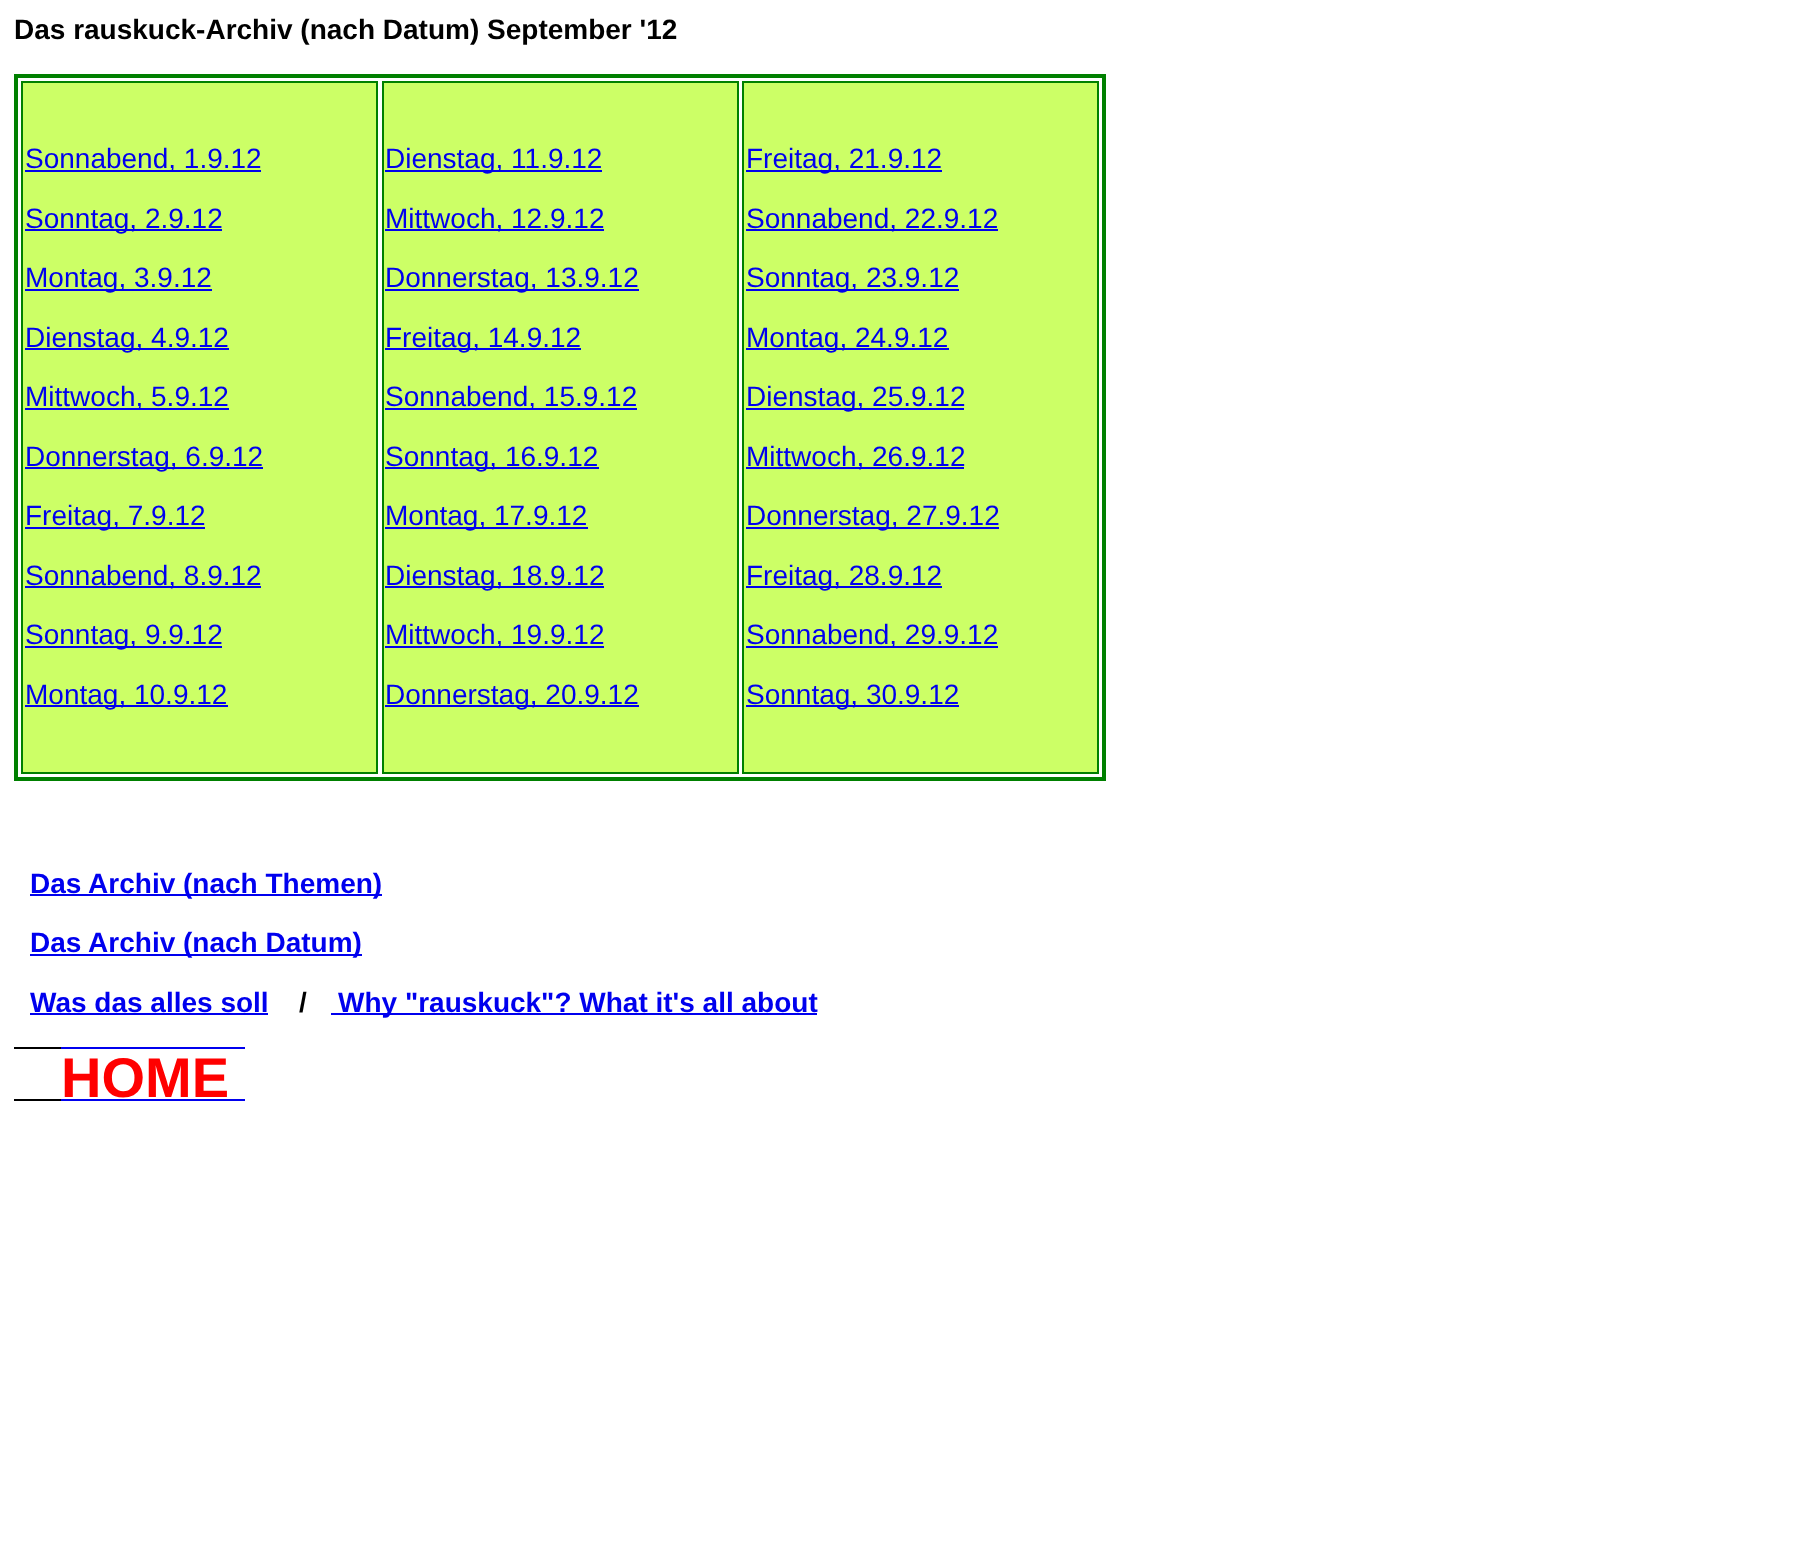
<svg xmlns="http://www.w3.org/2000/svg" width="1818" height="1565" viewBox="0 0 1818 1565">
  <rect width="100%" height="100%" fill="#fff"/>
  <path d="M16 76h1088v703H16z" fill="none" stroke="#008000" stroke-width="4"/>
  <path d="M22 82h355v691H22z" fill="#cf6" stroke="#008000" stroke-width="2"/>
  <path d="M25 170h236v2H25z" fill="#00e"/>
  <path d="M25 229h197v2H25z" fill="#00e"/>
  <path d="M25 289h187v2H25z" fill="#00e"/>
  <path d="M25 348h204v2H25z" fill="#00e"/>
  <path d="M25 408h204v2H25z" fill="#00e"/>
  <path d="M25 467h238v2H25z" fill="#00e"/>
  <path d="M25 527h180v2H25z" fill="#00e"/>
  <path d="M25 586h236v2H25z" fill="#00e"/>
  <path d="M25 646h197v2H25z" fill="#00e"/>
  <path d="M25 705h203v2H25z" fill="#00e"/>
  <path d="M383 82h355v691H383z" fill="#cf6" stroke="#008000" stroke-width="2"/>
  <path d="M385 170h217v2H385z" fill="#00e"/>
  <path d="M385 229h219v2H385z" fill="#00e"/>
  <path d="M385 289h254v2H385z" fill="#00e"/>
  <path d="M385 348h196v2H385z" fill="#00e"/>
  <path d="M385 408h252v2H385z" fill="#00e"/>
  <path d="M385 467h214v2H385z" fill="#00e"/>
  <path d="M385 527h203v2H385z" fill="#00e"/>
  <path d="M385 586h219v2H385z" fill="#00e"/>
  <path d="M385 646h219v2H385z" fill="#00e"/>
  <path d="M385 705h254v2H385z" fill="#00e"/>
  <path d="M743 82h355v691H743z" fill="#cf6" stroke="#008000" stroke-width="2"/>
  <path d="M746 170h196v2H746z" fill="#00e"/>
  <path d="M746 229h252v2H746z" fill="#00e"/>
  <path d="M746 289h213v2H746z" fill="#00e"/>
  <path d="M746 348h203v2H746z" fill="#00e"/>
  <path d="M746 408h218v2H746z" fill="#00e"/>
  <path d="M746 467h218v2H746z" fill="#00e"/>
  <path d="M746 527h253v2H746z" fill="#00e"/>
  <path d="M746 586h196v2H746z" fill="#00e"/>
  <path d="M746 646h252v2H746z" fill="#00e"/>
  <path d="M746 705h213v2H746z" fill="#00e"/>
  <path d="M30 894h352v2H30z" fill="#00e"/>
  <path d="M30 954h332v2H30z" fill="#00e"/>
  <path d="M30 1013h238v2H30z" fill="#00e"/>
  <path d="M331 1013h486v2H331z" fill="#00e"/>
  <path d="M14 1047h47v2H14z" fill="#000"/>
  <path d="M14 1099h47v2H14z" fill="#000"/>
  <path d="M61 1099h184v2H61z" fill="#00e"/>
  <path d="M61 1047h184v2H61z" fill="#00e"/>
  <text x="14" y="39" font-family="Liberation Sans" font-size="28" font-weight="bold" fill="#000">Das rauskuck-Archiv (nach Datum) September '12</text>
  <g font-family="Liberation Sans" font-size="28" fill="#00e">
    <text x="25" y="168">Sonnabend, 1.9.12</text>
    <text x="25" y="228">Sonntag, 2.9.12</text>
    <text x="25" y="287">Montag, 3.9.12</text>
    <text x="25" y="347">Dienstag, 4.9.12</text>
    <text x="25" y="406">Mittwoch, 5.9.12</text>
    <text x="25" y="466">Donnerstag, 6.9.12</text>
    <text x="25" y="525">Freitag, 7.9.12</text>
    <text x="25" y="585">Sonnabend, 8.9.12</text>
    <text x="25" y="644">Sonntag, 9.9.12</text>
    <text x="25" y="704">Montag, 10.9.12</text>
    <text x="385" y="168">Dienstag, 11.9.12</text>
    <text x="385" y="228">Mittwoch, 12.9.12</text>
    <text x="385" y="287">Donnerstag, 13.9.12</text>
    <text x="385" y="347">Freitag, 14.9.12</text>
    <text x="385" y="406">Sonnabend, 15.9.12</text>
    <text x="385" y="466">Sonntag, 16.9.12</text>
    <text x="385" y="525">Montag, 17.9.12</text>
    <text x="385" y="585">Dienstag, 18.9.12</text>
    <text x="385" y="644">Mittwoch, 19.9.12</text>
    <text x="385" y="704">Donnerstag, 20.9.12</text>
    <text x="746" y="168">Freitag, 21.9.12</text>
    <text x="746" y="228">Sonnabend, 22.9.12</text>
    <text x="746" y="287">Sonntag, 23.9.12</text>
    <text x="746" y="347">Montag, 24.9.12</text>
    <text x="746" y="406">Dienstag, 25.9.12</text>
    <text x="746" y="466">Mittwoch, 26.9.12</text>
    <text x="746" y="525">Donnerstag, 27.9.12</text>
    <text x="746" y="585">Freitag, 28.9.12</text>
    <text x="746" y="644">Sonnabend, 29.9.12</text>
    <text x="746" y="704">Sonntag, 30.9.12</text>
  </g>
  <g font-family="Liberation Sans" font-size="28" font-weight="bold" fill="#00e">
    <text x="30" y="893">Das Archiv (nach Themen)</text>
    <text x="30" y="952">Das Archiv (nach Datum)</text>
    <text x="30" y="1012">Was das alles soll</text>
  </g>
  <text x="299" y="1012" font-family="Liberation Sans" font-size="28" font-weight="bold" fill="#000">/</text>
  <text x="338" y="1012" font-family="Liberation Sans" font-size="28" font-weight="bold" fill="#00e">Why "rauskuck"? What it's all about</text>
  <text x="61" y="1097" font-family="Liberation Sans" font-size="56" font-weight="bold" fill="#f00">HOME</text>
</svg>
